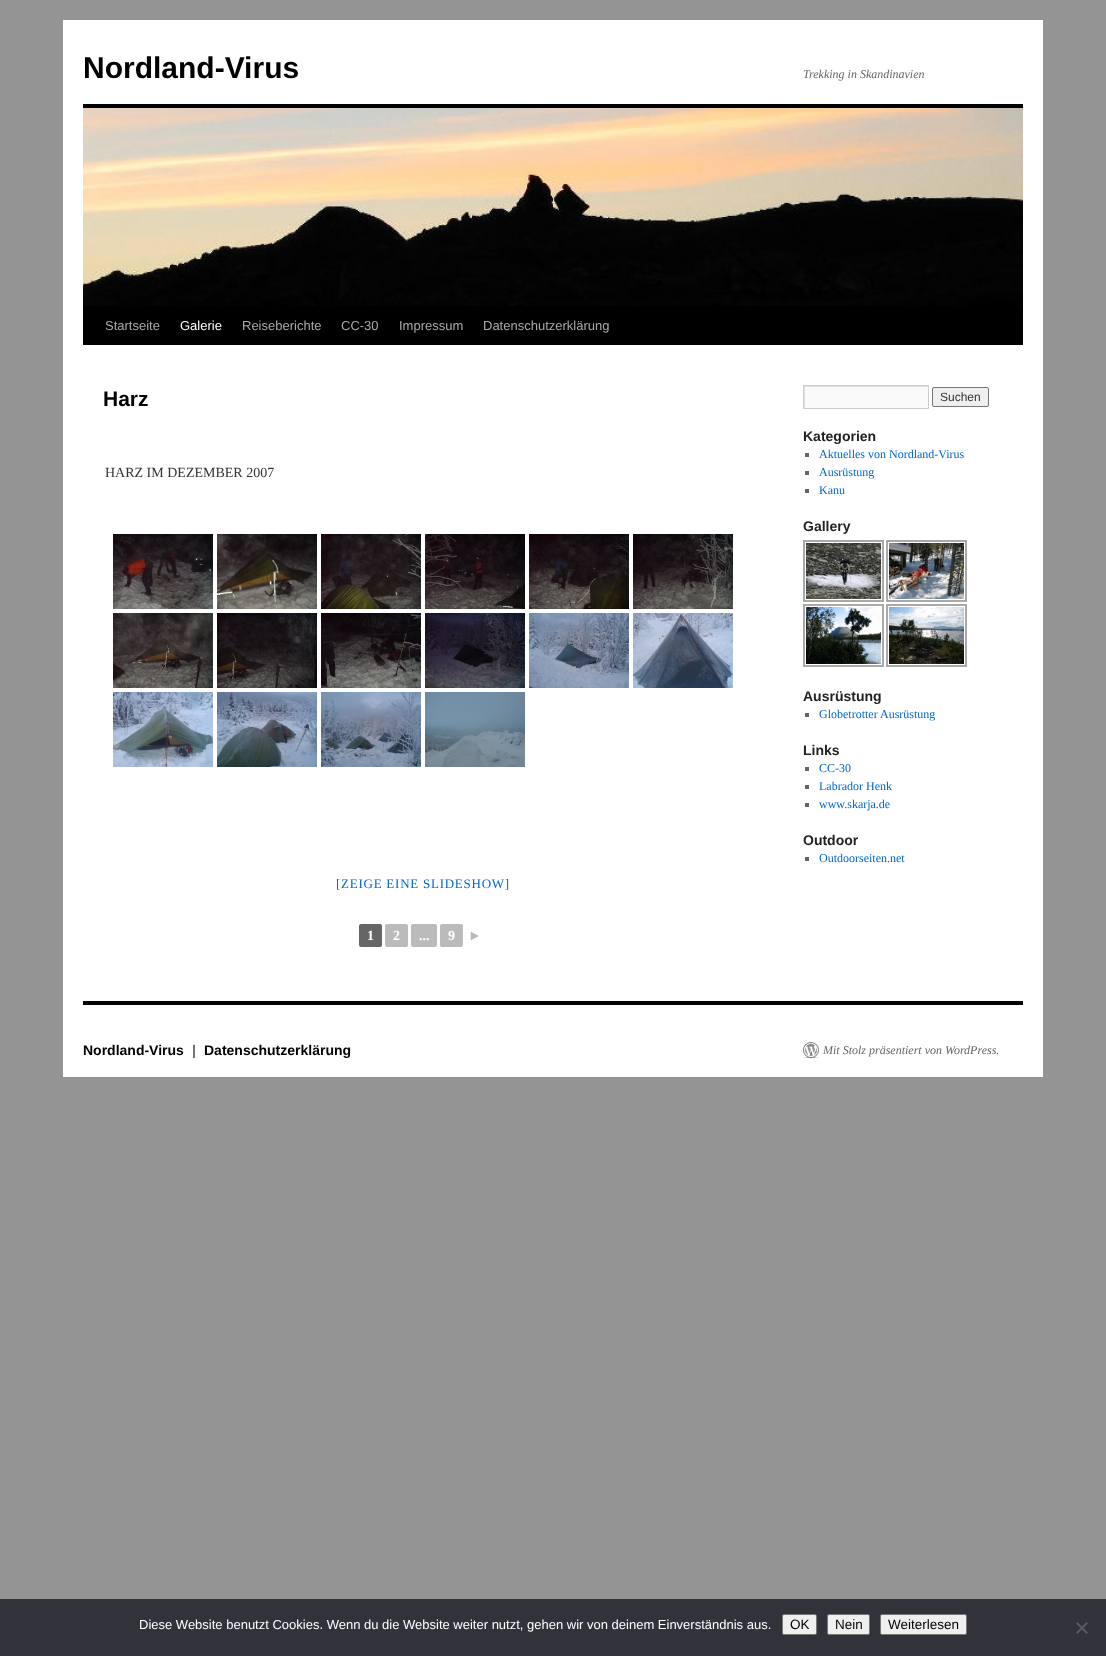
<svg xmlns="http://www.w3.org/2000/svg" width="1106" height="1656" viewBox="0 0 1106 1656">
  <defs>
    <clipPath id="clip1"><path d="M804 386h124v22H804z"/></clipPath>
  </defs>
  <rect width="100%" height="100%" fill="#949494"/>
  <path d="M63 20h980v1057H63z" fill="#fff"/>
  <path d="M83 104h940v4H83z" fill="#000"/>
  <path d="M83 306h940v39H83z" fill="#000"/>
  <image x="83" y="108" width="940" height="198" href="img/1.png"/>
  <image x="113" y="534" width="100" height="75" href="img/2.png"/>
  <image x="217" y="534" width="100" height="75" href="img/3.png"/>
  <image x="321" y="534" width="100" height="75" href="img/4.png"/>
  <image x="425" y="534" width="100" height="75" href="img/5.png"/>
  <image x="529" y="534" width="100" height="75" href="img/6.png"/>
  <image x="633" y="534" width="100" height="75" href="img/7.png"/>
  <image x="113" y="613" width="100" height="75" href="img/8.png"/>
  <image x="217" y="613" width="100" height="75" href="img/9.png"/>
  <image x="321" y="613" width="100" height="75" href="img/10.png"/>
  <image x="425" y="613" width="100" height="75" href="img/11.png"/>
  <image x="529" y="613" width="100" height="75" href="img/12.png"/>
  <image x="633" y="613" width="100" height="75" href="img/13.png"/>
  <image x="113" y="692" width="100" height="75" href="img/14.png"/>
  <image x="217" y="692" width="100" height="75" href="img/15.png"/>
  <image x="321" y="692" width="100" height="75" href="img/16.png"/>
  <image x="425" y="692" width="100" height="75" href="img/17.png"/>
  <rect x="359" y="924" width="23" height="23" rx="2" fill="#666"/>
  <rect x="385" y="924" width="23" height="23" rx="2" fill="#bbb"/>
  <rect x="411" y="924" width="26" height="23" rx="2" fill="#bbb"/>
  <rect x="440" y="924" width="23" height="23" rx="2" fill="#bbb"/>
  <path d="M805 387h123v21H805z" fill="#f9f9f9"/>
  <g clip-path="url(#clip1)">
    <path d="M705 287H1027V507H705ZM805 387H929V409H805Z" fill="#e0e0e0" fill-rule="evenodd"/>
  </g>
  <path d="M803.5 385.5h125v23H803.5z" fill="none" stroke="#ccc"/>
  <rect x="932.5" y="387.5" width="56" height="19" rx="1.5" fill="#efefef" stroke="#767676"/>
  <path d="M805 453h4v4H805z" fill="#666"/>
  <path d="M805 471h4v4H805z" fill="#666"/>
  <path d="M805 489h4v4H805z" fill="#666"/>
  <path d="M804 541h79v60H804z" fill="none" stroke="#a9a9a9" stroke-width="2"/>
  <image x="806" y="543" width="75" height="56" href="img/18.png"/>
  <path d="M887 541h79v60H887z" fill="none" stroke="#a9a9a9" stroke-width="2"/>
  <image x="889" y="543" width="75" height="56" href="img/19.png"/>
  <path d="M804 605h79v61H804z" fill="none" stroke="#a9a9a9" stroke-width="2"/>
  <image x="806" y="607" width="75" height="57" href="img/20.png"/>
  <path d="M887 605h79v61H887z" fill="none" stroke="#a9a9a9" stroke-width="2"/>
  <image x="889" y="607" width="75" height="57" href="img/21.png"/>
  <path d="M805 713h4v4H805z" fill="#666"/>
  <path d="M805 767h4v4H805z" fill="#666"/>
  <path d="M805 785h4v4H805z" fill="#666"/>
  <path d="M805 803h4v4H805z" fill="#666"/>
  <path d="M805 857h4v4H805z" fill="#666"/>
  <path d="M83 1001h940v4H83z" fill="#000"/>
  <image x="803" y="1042" width="16" height="16" href="img/22.png"/>
  <path d="M0 1599h1106v57H0z" fill="#32323a"/>
  <rect x="782.5" y="1614.5" width="34" height="20" rx="1.5" fill="#efefef" stroke="#767676"/>
  <rect x="827.5" y="1614.5" width="42" height="20" rx="1.5" fill="#efefef" stroke="#767676"/>
  <rect x="880.5" y="1614.5" width="86" height="20" rx="1.5" fill="#efefef" stroke="#767676"/>
  <path d="M1086.5 1622L1088 1623.5L1077.5 1634L1076 1632.5Z" fill="#59595d"/>
  <path d="M1076 1623.5L1077.5 1622L1088 1632.5L1086.5 1634Z" fill="#59595d"/>
  <text x="83" y="78" font-family="Liberation Sans" font-size="30" font-weight="bold" fill="#000">Nordland-Virus</text>
  <text x="803" y="78" font-family="Liberation Serif" font-size="12" font-style="italic" fill="#666">Trekking in Skandinavien</text>
  <text x="105" y="330" font-family="Liberation Sans" font-size="13" fill="#aaa">Startseite</text>
  <text x="180" y="330" font-family="Liberation Sans" font-size="13" fill="#fff">Galerie</text>
  <g font-family="Liberation Sans" font-size="13" fill="#aaa">
    <text x="242" y="330">Reiseberichte</text>
    <text x="341" y="330">CC-30</text>
    <text x="399" y="330">Impressum</text>
    <text x="483" y="330">Datenschutzerklärung</text>
  </g>
  <text x="103" y="406" font-family="Liberation Sans" font-size="21" font-weight="bold" fill="#000">Harz</text>
  <text x="105" y="477" font-family="Liberation Serif" font-size="14" fill="#333">HARZ IM DEZEMBER 2007</text>
  <text x="336" y="888" font-family="Liberation Serif" font-size="13" letter-spacing="0.75" fill="#06c">[ZEIGE EINE SLIDESHOW]</text>
  <g font-family="Liberation Serif" font-size="14" font-weight="bold" fill="#fff">
    <text x="367" y="940">1</text>
    <text x="393" y="940">2</text>
    <text x="419" y="940">...</text>
    <text x="448" y="940">9</text>
  </g>
  <text x="468" y="940" font-family="Liberation Serif" font-size="14" font-weight="bold" fill="#bbb">►</text>
  <text x="940" y="401" font-family="Liberation Sans" font-size="12" fill="#333">Suchen</text>
  <text x="803" y="441" font-family="Liberation Sans" font-size="14" font-weight="bold" fill="#222">Kategorien</text>
  <g font-family="Liberation Serif" font-size="12" fill="#06c">
    <text x="819" y="458">Aktuelles von Nordland-Virus</text>
    <text x="819" y="476">Ausrüstung</text>
    <text x="819" y="494">Kanu</text>
  </g>
  <g font-family="Liberation Sans" font-size="14" font-weight="bold" fill="#222">
    <text x="803" y="531">Gallery</text>
    <text x="803" y="701">Ausrüstung</text>
  </g>
  <text x="819" y="718" font-family="Liberation Serif" font-size="12" fill="#06c">Globetrotter Ausrüstung</text>
  <text x="803" y="755" font-family="Liberation Sans" font-size="14" font-weight="bold" fill="#222">Links</text>
  <g font-family="Liberation Serif" font-size="12" fill="#06c">
    <text x="819" y="772">CC-30</text>
    <text x="819" y="790">Labrador Henk</text>
    <text x="819" y="808">www.skarja.de</text>
  </g>
  <text x="803" y="845" font-family="Liberation Sans" font-size="14" font-weight="bold" fill="#222">Outdoor</text>
  <text x="819" y="862" font-family="Liberation Serif" font-size="12" fill="#06c">Outdoorseiten.net</text>
  <text x="83" y="1055" font-family="Liberation Sans" font-size="14" font-weight="bold" fill="#000">Nordland-Virus</text>
  <text x="192" y="1055" font-family="Liberation Sans" font-size="14" font-weight="bold" fill="#666">|</text>
  <text x="204" y="1055" font-family="Liberation Sans" font-size="14" font-weight="bold" fill="#000">Datenschutzerklärung</text>
  <text x="823" y="1054" font-family="Liberation Serif" font-size="12" font-style="italic" fill="#666">Mit Stolz präsentiert von WordPress.</text>
  <text x="139" y="1629" font-family="Liberation Sans" font-size="13" fill="#fff">Diese Website benutzt Cookies. Wenn du die Website weiter nutzt, gehen wir von deinem Einverständnis aus.</text>
  <g font-family="Liberation Sans" font-size="13.5" fill="#000">
    <text x="790" y="1629">OK</text>
    <text x="835" y="1629">Nein</text>
    <text x="888" y="1629">Weiterlesen</text>
  </g>
</svg>
